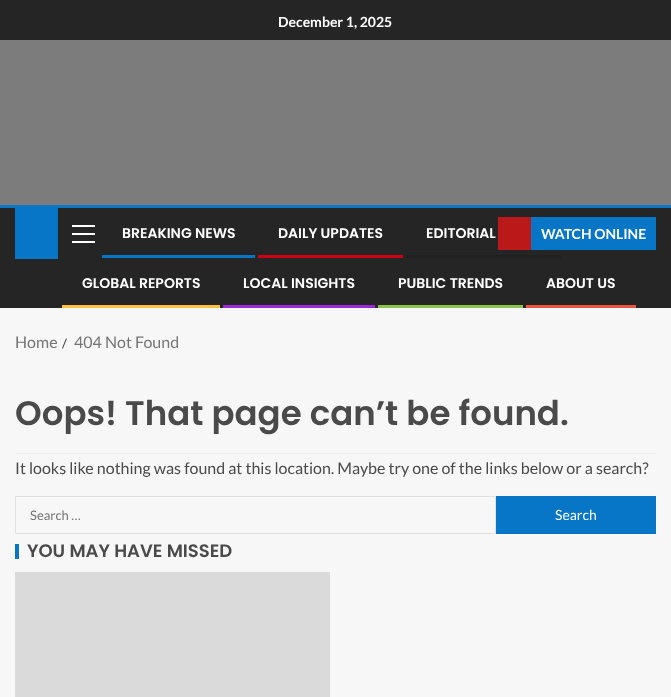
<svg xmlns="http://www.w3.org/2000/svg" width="671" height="697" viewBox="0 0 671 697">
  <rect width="100%" height="100%" fill="#f7f7f7"/>
  <path d="M0 0h671v40H0z" fill="#252525"/>
  <path d="M0 40h671v165H0z" fill="#7c7c7c"/>
  <path d="M0 208h671v100H0z" fill="#252525"/>
  <path d="M0 205h671v3H0z" fill="#0776c6"/>
  <path d="M15 208h43v51H15z" fill="#0776c6"/>
  <path d="M72 233h23v2H72z" fill="#fff"/>
  <path d="M72 225h23v2H72z" fill="#fff"/>
  <path d="M72 241h23v2H72z" fill="#fff"/>
  <path d="M102 255h153v3H102z" fill="#0776c6"/>
  <path d="M258 255h145v3H258z" fill="#cc0010"/>
  <path d="M406 255h155v3H406z" fill="#202020"/>
  <path d="M62 305h158v3H62z" fill="#ffbf3f"/>
  <path d="M223 305h152v3H223z" fill="#9c27d9"/>
  <path d="M378 305h145v3H378z" fill="#8bc34a"/>
  <path d="M526 305h110v3H526z" fill="#ed553f"/>
  <path d="M498 217h33v33H498z" fill="#bb1919"/>
  <path d="M531 217h125v33H531z" fill="#0776c6"/>
  <path d="M15 453h641v1H15z" fill="#eee"/>
  <path d="M15.5 496.5h480v37H15.5z" fill="none" stroke="#e0e0e0"/>
  <path d="M496 496h160v38H496z" fill="#0776c6"/>
  <path d="M15 544h4v15H15z" fill="#0776c6"/>
  <path d="M15 572h315v125H15z" fill="#dadada"/>
  <text x="278" y="27" font-family="Lato" font-size="14" font-weight="bold" fill="#fff">December 1, 2025</text>
  <g font-family="Poppins" font-size="14" font-weight="600" fill="#fff">
    <text x="122" y="238">BREAKING NEWS</text>
    <text x="278" y="238">DAILY UPDATES</text>
    <text x="426" y="238">EDITORIAL</text>
    <text x="82" y="288">GLOBAL REPORTS</text>
    <text x="243" y="288">LOCAL INSIGHTS</text>
    <text x="398" y="288">PUBLIC TRENDS</text>
    <text x="546" y="288">ABOUT US</text>
  </g>
  <text x="541" y="239" font-family="Lato" font-size="14" font-weight="bold" fill="#fff">WATCH ONLINE</text>
  <text x="15" y="348" font-family="Lato" font-size="16" fill="#757575">Home</text>
  <text x="62" y="348" font-family="Lato" font-size="13" fill="#393e46">/</text>
  <text x="74" y="348" font-family="Lato" font-size="16" fill="#757575">404 Not Found</text>
  <text x="15" y="425" font-family="Poppins" font-size="34" font-weight="600" fill="#4a4a4a">Oops! That page can’t be found.</text>
  <text x="15" y="474" font-family="Lato" font-size="16" fill="#4a4a4a">It looks like nothing was found at this location. Maybe try one of the links below or a search?</text>
  <text x="30" y="520" font-family="Lato" font-size="13" fill="#757575">Search …</text>
  <text x="555" y="520" font-family="Lato" font-size="14" fill="#fff">Search</text>
  <text x="27" y="557" font-family="Poppins" font-size="18" font-weight="600" fill="#4a4a4a">YOU MAY HAVE MISSED</text>
</svg>
